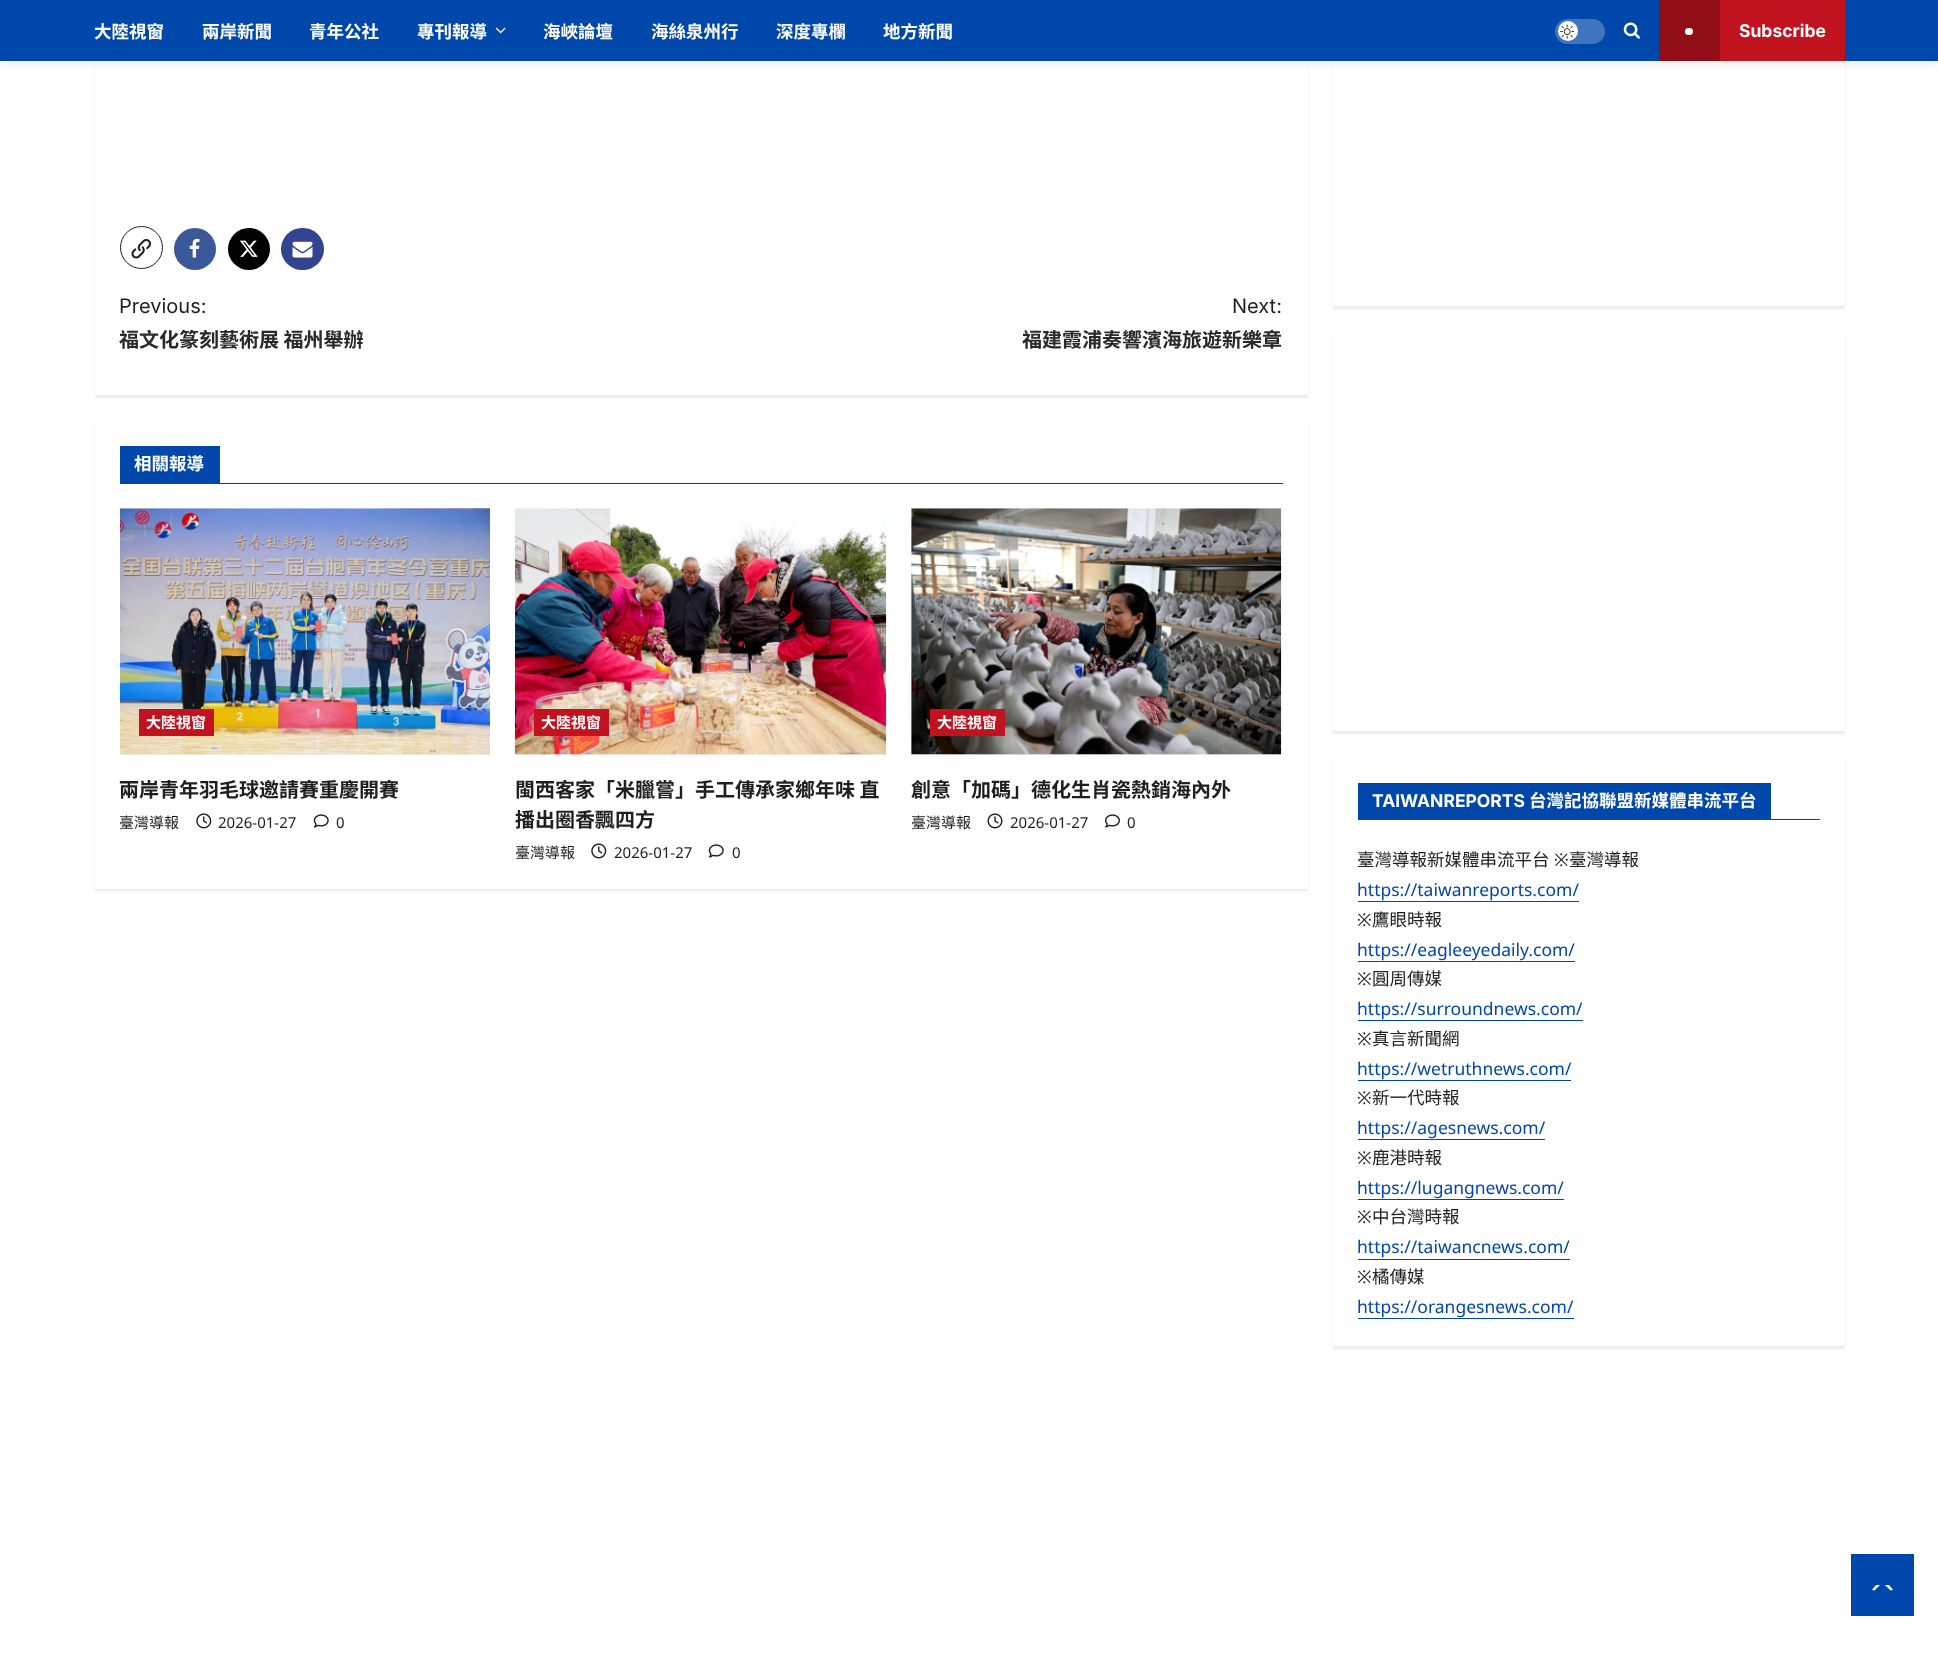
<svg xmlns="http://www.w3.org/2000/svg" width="1938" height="1672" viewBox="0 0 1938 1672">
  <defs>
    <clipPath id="clip1"><path d="M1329 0H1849V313H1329ZM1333-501H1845V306H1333Z" clip-rule="evenodd"/></clipPath>
    <clipPath id="clip2"><path d="M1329 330H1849V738H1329ZM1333 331H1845V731H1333Z" clip-rule="evenodd"/></clipPath>
    <clipPath id="clip3"><path d="M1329 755H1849V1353H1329ZM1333 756H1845V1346H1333Z" clip-rule="evenodd"/></clipPath>
  </defs>
  <rect width="100%" height="100%" fill="#fff"/>
  <path d="M95 -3h1213v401H95z" fill="#00000014" filter="blur(1px)"/>
  <path d="M95 61h1213v334H95z" fill="#fff"/>
  <path d="M0 3h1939v61H0z" fill="#00000014" filter="blur(5px)"/>
  <g clip-path="url(#clip1)">
    <path d="M1333 -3h512v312H1333z" fill="#00000014" filter="blur(1px)"/>
  </g>
  <path d="M0 0h1938v61H0z" fill="#0047ab"/>
  <image x="495" y="27" width="11" height="7" href="img/1.png"/>
  <rect x="1555" y="19" width="50" height="25" rx="12.5" fill="#4075c0"/>
  <circle cx="1568" cy="31" r="10" fill="#fff"/>
  <image x="1560" y="24" width="15" height="15" href="img/2.png"/>
  <image x="1623" y="22" width="17" height="17" href="img/3.png"/>
  <path d="M1720 0h125v61H1720z" fill="#c1121f"/>
  <path d="M1659 0h61v61H1659z" fill="#910e17"/>
  <rect x="1685" y="28" width="8" height="7" rx="3.5" fill="#fff"/>
  <circle cx="141.5" cy="247.5" r="21" fill="none" stroke="#1f1f1f"/>
  <image x="131" y="239" width="20" height="20" href="img/4.png"/>
  <circle cx="195" cy="249" r="21" fill="#3b5998"/>
  <image x="189" y="238" width="11" height="20" href="img/5.png"/>
  <circle cx="249" cy="249" r="21" fill="#000"/>
  <image x="239" y="240" width="19" height="17" href="img/6.png"/>
  <rect x="281" y="228" width="43" height="42" rx="21" fill="#324390"/>
  <image x="292" y="241" width="21" height="17" href="img/7.png"/>
  <path d="M95 423h1213v468H95z" fill="#00000014" filter="blur(1px)"/>
  <path d="M95 422h1213v467H95z" fill="#fff"/>
  <path d="M120 483h1163v1H120z" fill="#0047ab"/>
  <path d="M120 446h100v37H120z" fill="#0047ab"/>
  <path d="M120 754h370v1H120z" fill="#ececec"/>
  <image x="120" y="508" width="370" height="247" href="img/8.png"/>
  <path d="M139 709h75v27H139z" fill="#c1121f"/>
  <image x="196" y="813" width="16" height="16" href="img/9.png"/>
  <image x="313" y="814" width="16" height="14" href="img/10.png"/>
  <path d="M515 754h371v1H515z" fill="#ececec"/>
  <image x="515" y="508" width="372" height="247" href="img/11.png"/>
  <path d="M534 709h75v27H534z" fill="#c1121f"/>
  <image x="591" y="843" width="16" height="16" href="img/9.png"/>
  <image x="708" y="844" width="16" height="14" href="img/10.png"/>
  <path d="M911 509h370v246H911z" fill="#ececec"/>
  <image x="911" y="508" width="371" height="247" href="img/12.png"/>
  <path d="M930 709h75v27H930z" fill="#c1121f"/>
  <image x="987" y="813" width="16" height="16" href="img/13.png"/>
  <image x="1105" y="814" width="15" height="14" href="img/14.png"/>
  <g clip-path="url(#clip2)">
    <path d="M1333 334h512v400H1333z" fill="#00000014" filter="blur(1px)"/>
  </g>
  <g clip-path="url(#clip3)">
    <path d="M1333 759h512v590H1333z" fill="#00000014" filter="blur(1px)"/>
  </g>
  <path d="M1358 819h462v1H1358z" fill="#0047ab"/>
  <path d="M1358 783h413v36H1358z" fill="#0047ab"/>
  <path d="M1358 901h221v1H1358z" fill="#0047ab"/>
  <path d="M1358 961h217v1H1358z" fill="#0047ab"/>
  <path d="M1358 1020h225v1H1358z" fill="#0047ab"/>
  <path d="M1358 1080h213v1H1358z" fill="#0047ab"/>
  <path d="M1358 1139h187v1H1358z" fill="#0047ab"/>
  <path d="M1358 1199h206v1H1358z" fill="#0047ab"/>
  <path d="M1358 1259h212v1H1358z" fill="#0047ab"/>
  <path d="M1358 1318h216v1H1358z" fill="#0047ab"/>
  <path d="M1851 1554h63v62H1851z" fill="#0047ab"/>
  <path d="M1893 1589.5C1890.5 1592 1886 1591 1882.5 1591C1879 1591 1874.5 1592 1872 1589.5L1876 1585H1889Z" fill="#fff"/>
  <path d="M1895 1595H1870L1882.5 1582.5Z" fill="#0047ab"/>
  <g font-family="Noto Sans CJK SC" font-size="17.5" font-weight="bold" fill="#fff">
    <text x="94" y="38">大陸視窗</text>
    <text x="202" y="38">兩岸新聞</text>
    <text x="309" y="38">青年公社</text>
    <text x="417" y="38">專刊報導</text>
    <text x="543" y="38">海峽論壇</text>
    <text x="651" y="38">海絲泉州行</text>
    <text x="776" y="38">深度專欄</text>
    <text x="883" y="38">地方新聞</text>
  </g>
  <text x="1739" y="37" font-family="Inter" font-size="17.5" font-weight="bold" fill="#fff">Subscribe</text>
  <text x="119" y="313" font-family="Inter" font-size="20" fill="#1f1f1f">Previous:</text>
  <text x="119" y="347" font-family="Noto Sans CJK SC" font-size="20" font-weight="bold" fill="#2a2a2a">福文化篆刻藝術展 福州舉辦</text>
  <text x="1232" y="313" font-family="Inter" font-size="20" fill="#1f1f1f">Next:</text>
  <text x="1022" y="347" font-family="Noto Sans CJK SC" font-size="20" font-weight="bold" fill="#2a2a2a">福建霞浦奏響濱海旅遊新樂章</text>
  <text x="134" y="470" font-family="Noto Sans CJK SC" font-size="17.5" font-weight="bold" fill="#fff">相關報導</text>
  <text x="146" y="728" font-family="Noto Sans CJK SC" font-size="15" font-weight="bold" fill="#fff">大陸視窗</text>
  <text x="119" y="797" font-family="Noto Sans CJK SC" font-size="20" font-weight="bold" fill="#1f1f1f">兩岸青年羽毛球邀請賽重慶開賽</text>
  <text x="119" y="828" font-family="Noto Sans CJK SC" font-size="15" fill="#1f1f1f">臺灣導報</text>
  <g font-family="Noto Sans" font-size="15" fill="#1f1f1f">
    <text x="218" y="828">2026-01-27</text>
    <text x="336" y="828">0</text>
  </g>
  <text x="541" y="728" font-family="Noto Sans CJK SC" font-size="15" font-weight="bold" fill="#fff">大陸視窗</text>
  <g font-family="Noto Sans CJK SC" font-size="20" font-weight="bold" fill="#1f1f1f">
    <text x="515" y="797">閩西客家「米臘嘗」手工傳承家鄉年味 直</text>
    <text x="515" y="827">播出圈香飄四方</text>
  </g>
  <text x="515" y="858" font-family="Noto Sans CJK SC" font-size="15" fill="#1f1f1f">臺灣導報</text>
  <g font-family="Noto Sans" font-size="15" fill="#1f1f1f">
    <text x="614" y="858">2026-01-27</text>
    <text x="732" y="858">0</text>
  </g>
  <text x="937" y="728" font-family="Noto Sans CJK SC" font-size="15" font-weight="bold" fill="#fff">大陸視窗</text>
  <text x="911" y="797" font-family="Noto Sans CJK SC" font-size="20" font-weight="bold" fill="#1f1f1f">創意「加碼」德化生肖瓷熱銷海內外</text>
  <text x="911" y="828" font-family="Noto Sans CJK SC" font-size="15" fill="#1f1f1f">臺灣導報</text>
  <g font-family="Noto Sans" font-size="15" fill="#1f1f1f">
    <text x="1010" y="828">2026-01-27</text>
    <text x="1127" y="828">0</text>
  </g>
  <text x="1372" y="807" font-family="Inter" font-size="17.5" font-weight="bold" fill="#fff">TAIWANREPORTS</text>
  <text x="1529" y="807" font-family="Noto Sans CJK SC" font-size="17.5" font-weight="bold" fill="#fff">台灣記協聯盟新媒體串流平台</text>
  <text x="1357" y="866" font-family="Noto Sans CJK SC" font-size="17.5" fill="#1f1f1f">臺灣導報新媒體串流平台</text>
  <text x="1554" y="866" font-family="Noto Sans" font-size="17.5" fill="#1f1f1f">※</text>
  <text x="1569" y="866" font-family="Noto Sans CJK SC" font-size="17.5" fill="#1f1f1f">臺灣導報</text>
  <text x="1357" y="896" font-family="Noto Sans" font-size="17.5" fill="#0047ab">https://taiwanreports.com/</text>
  <text x="1357" y="926" font-family="Noto Sans" font-size="17.5" fill="#1f1f1f">※</text>
  <text x="1372" y="926" font-family="Noto Sans CJK SC" font-size="17.5" fill="#1f1f1f">鷹眼時報</text>
  <text x="1357" y="956" font-family="Noto Sans" font-size="17.5" fill="#0047ab">https://eagleeyedaily.com/</text>
  <text x="1357" y="985" font-family="Noto Sans" font-size="17.5" fill="#1f1f1f">※</text>
  <text x="1372" y="985" font-family="Noto Sans CJK SC" font-size="17.5" fill="#1f1f1f">圓周傳媒</text>
  <text x="1357" y="1015" font-family="Noto Sans" font-size="17.5" fill="#0047ab">https://surroundnews.com/</text>
  <text x="1357" y="1045" font-family="Noto Sans" font-size="17.5" fill="#1f1f1f">※</text>
  <text x="1372" y="1045" font-family="Noto Sans CJK SC" font-size="17.5" fill="#1f1f1f">真言新聞網</text>
  <text x="1357" y="1075" font-family="Noto Sans" font-size="17.5" fill="#0047ab">https://wetruthnews.com/</text>
  <text x="1357" y="1104" font-family="Noto Sans" font-size="17.5" fill="#1f1f1f">※</text>
  <text x="1372" y="1104" font-family="Noto Sans CJK SC" font-size="17.5" fill="#1f1f1f">新一代時報</text>
  <text x="1357" y="1134" font-family="Noto Sans" font-size="17.5" fill="#0047ab">https://agesnews.com/</text>
  <text x="1357" y="1164" font-family="Noto Sans" font-size="17.5" fill="#1f1f1f">※</text>
  <text x="1372" y="1164" font-family="Noto Sans CJK SC" font-size="17.5" fill="#1f1f1f">鹿港時報</text>
  <text x="1357" y="1194" font-family="Noto Sans" font-size="17.5" fill="#0047ab">https://lugangnews.com/</text>
  <text x="1357" y="1223" font-family="Noto Sans" font-size="17.5" fill="#1f1f1f">※</text>
  <text x="1372" y="1223" font-family="Noto Sans CJK SC" font-size="17.5" fill="#1f1f1f">中台灣時報</text>
  <text x="1357" y="1253" font-family="Noto Sans" font-size="17.5" fill="#0047ab">https://taiwancnews.com/</text>
  <text x="1357" y="1283" font-family="Noto Sans" font-size="17.5" fill="#1f1f1f">※</text>
  <text x="1372" y="1283" font-family="Noto Sans CJK SC" font-size="17.5" fill="#1f1f1f">橘傳媒</text>
  <text x="1357" y="1313" font-family="Noto Sans" font-size="17.5" fill="#0047ab">https://orangesnews.com/</text>
</svg>
